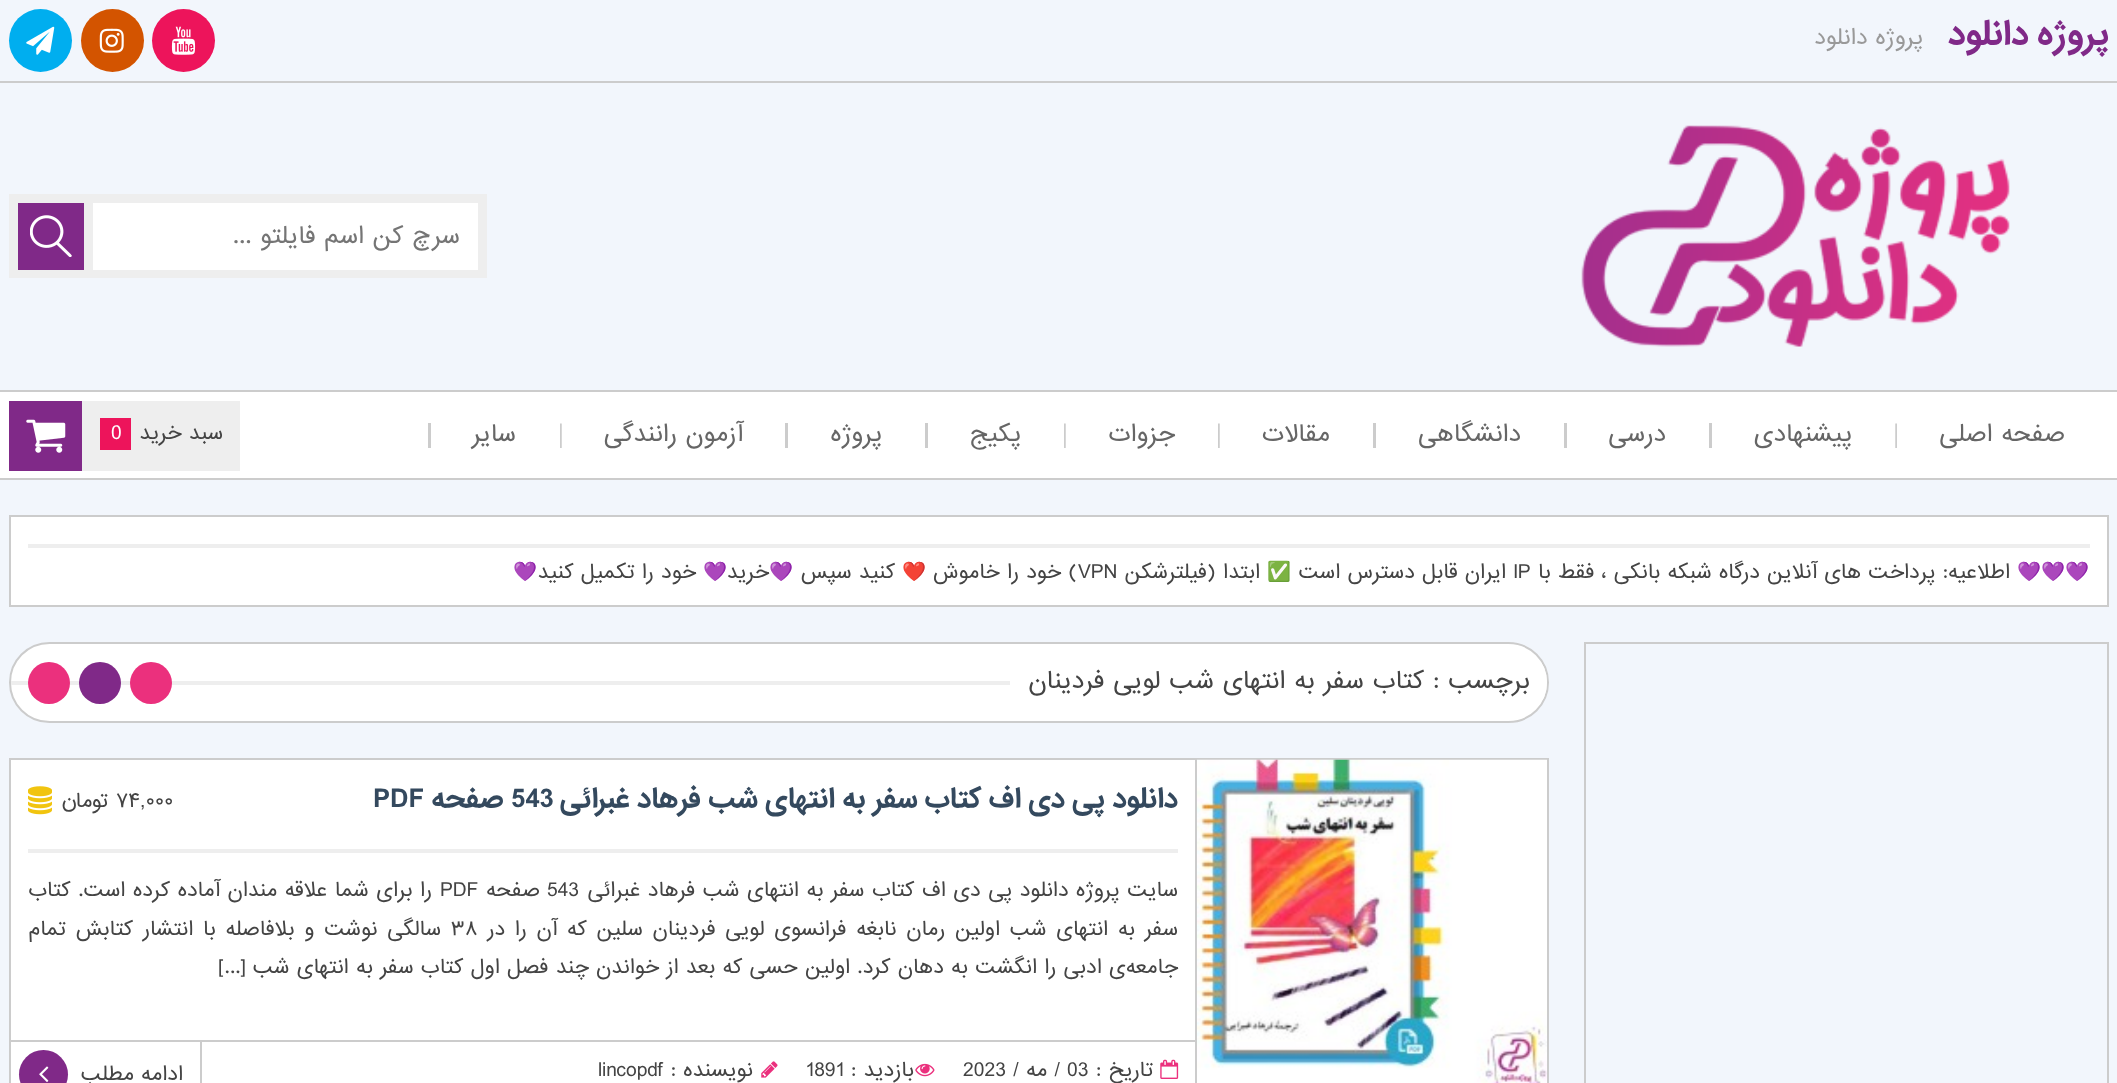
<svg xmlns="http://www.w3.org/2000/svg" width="2117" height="1083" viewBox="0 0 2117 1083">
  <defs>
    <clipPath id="clip1"><rect x="11" y="644" width="1536" height="77" rx="38.5"/></clipPath>
  </defs>
  <rect width="100%" height="100%" fill="#f2f6fc"/>
  <path d="M0 81h2117v2H0z" fill="#ccc"/>
  <circle cx="183.5" cy="40.5" r="31.5" fill="#ed145b"/>
  <image x="171" y="26" width="25" height="29" href="img/1.png"/>
  <circle cx="112.5" cy="40.5" r="31.5" fill="#d35400"/>
  <image x="99" y="28" width="25" height="25" href="img/2.png"/>
  <circle cx="40.5" cy="40.5" r="31.5" fill="#00aeef"/>
  <image x="26" y="26" width="29" height="29" href="img/3.png"/>
  <path d="M0 390h2117v2H0z" fill="#ccc"/>
  <image x="1581" y="125" width="429" height="222" href="img/4.png"/>
  <path d="M9 194h478v84H9z" fill="#eee"/>
  <path d="M93 203h385v67H93z" fill="#fff"/>
  <path d="M18 203h66v67H18z" fill="#802988"/>
  <image x="30" y="215" width="42" height="42" href="img/5.png"/>
  <path d="M0 392h2117v86H0z" fill="#fff"/>
  <path d="M0 478h2117v2H0z" fill="#ccc"/>
  <image x="1895" y="423" width="2" height="25" href="img/6.png"/>
  <path d="M1709 423h3v25H1709z" fill="#ccc"/>
  <path d="M1564 423h3v25H1564z" fill="#ccc"/>
  <path d="M1373 423h3v25H1373z" fill="#ccc"/>
  <image x="1218" y="423" width="2" height="25" href="img/7.png"/>
  <image x="1064" y="423" width="2" height="25" href="img/7.png"/>
  <path d="M925 423h3v25H925z" fill="#ccc"/>
  <path d="M785 423h3v25H785z" fill="#ccc"/>
  <image x="560" y="423" width="2" height="25" href="img/7.png"/>
  <path d="M428 423h3v25H428z" fill="#ccc"/>
  <path d="M82 401h158v70H82z" fill="#eee"/>
  <path d="M100 418h31v32H100z" fill="#ed145b"/>
  <path d="M9 401h73v70H9z" fill="#802988"/>
  <image x="26" y="419" width="40" height="34" href="img/8.png"/>
  <path d="M10 516h2098v90H10z" fill="#fff" stroke="#ccc" stroke-width="2"/>
  <path d="M28 544h2062v4H28z" fill="#eee"/>
  <path d="M1585 643h523v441H1585z" fill="none" stroke="#ccc" stroke-width="2"/>
  <rect x="10" y="643" width="1538" height="79" rx="39.5" fill="#fff" stroke="#ccc" stroke-width="2"/>
  <path d="M11 681h1536v4H11z" fill="#eee"/>
  <g clip-path="url(#clip1)">
    <path d="M1010 662h537v38H1010z" fill="#fff"/>
  </g>
  <circle cx="151" cy="683" r="21" fill="#eb307d"/>
  <circle cx="100" cy="683" r="21" fill="#802988"/>
  <circle cx="49" cy="683" r="21" fill="#eb307d"/>
  <path d="M11 760h1184v323H11z" fill="#fff"/>
  <path d="M10 759h1538v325H10z" fill="none" stroke="#ccc" stroke-width="2"/>
  <path d="M1195 760h2v323H1195z" fill="#ccc"/>
  <image x="1197" y="759" width="350" height="324" href="img/9.png"/>
  <image x="28" y="786" width="24" height="29" href="img/10.png"/>
  <path d="M28 849h1150v4H28z" fill="#eee"/>
  <path d="M11 1040h1184v2H11z" fill="#ccc"/>
  <image x="1160" y="1059" width="19" height="20" href="img/11.png"/>
  <image x="915" y="1063" width="20" height="14" href="img/12.png"/>
  <image x="761" y="1061" width="17" height="17" href="img/13.png"/>
  <path d="M200 1041h2v42H200z" fill="#ccc"/>
  <circle cx="43.5" cy="1074.5" r="24.5" fill="#802988"/>
  <image x="39" y="1066" width="10" height="16" href="img/14.png"/>
  <text x="2109" y="44" font-family="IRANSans" font-size="31.5" font-weight="bold" direction="rtl" fill="#802988">پروژه دانلود</text>
  <text x="1923" y="44" font-family="IRANSans" font-size="21" direction="rtl" fill="#999">پروژه دانلود</text>
  <text x="460" y="243" font-family="IRANSans" font-size="22.75" direction="rtl" fill="#757575">سرچ کن اسم فایلتو ...</text>
  <g font-family="IRANSans" font-size="22.75" direction="rtl" fill="#666">
    <text x="2065" y="441">صفحه اصلی</text>
    <text x="1852" y="441">پیشنهادی</text>
    <text x="1666" y="441">درسی</text>
    <text x="1521" y="441">دانشگاهی</text>
    <text x="1330" y="441">مقالات</text>
    <text x="1175" y="441">جزوات</text>
    <text x="1021" y="441">پکیج</text>
    <text x="882" y="441">پروژه</text>
    <text x="743" y="441">آزمون رانندگی</text>
    <text x="516" y="441">سایر</text>
  </g>
  <text x="223" y="439" font-family="IRANSans" font-size="19.25" direction="rtl" fill="#444">سبد خرید</text>
  <text x="111" y="439" font-family="IRANSans" font-size="19.25" fill="#fff">0</text>
  <text x="2089" y="578" font-family="Noto Color Emoji" font-size="19.25" direction="rtl" fill="#444">💜💜💜</text>
  <text x="2010" y="578" font-family="IRANSans" font-size="19.25" direction="rtl" fill="#444">اطلاعیه: پرداخت‌ های آنلاین درگاه شبکه بانکی ، فقط با</text>
  <text x="1513" y="578" font-family="IRANSans" font-size="19.25" fill="#444">IP</text>
  <text x="1506" y="578" font-family="IRANSans" font-size="19.25" direction="rtl" fill="#444">ایران قابل دسترس است</text>
  <text x="1291" y="578" font-family="Noto Color Emoji" font-size="19.25" direction="rtl" fill="#444">✅</text>
  <text x="1260" y="578" font-family="IRANSans" font-size="19.25" direction="rtl" fill="#444">ابتدا (فیلترشکن</text>
  <text x="1078" y="578" font-family="IRANSans" font-size="19.25" fill="#444">VPN</text>
  <text x="1078" y="578" font-family="IRANSans" font-size="19.25" direction="rtl" fill="#444">) خود را خاموش</text>
  <text x="926" y="578" font-family="Noto Color Emoji" font-size="19.25" direction="rtl" fill="#444">❤️</text>
  <g font-family="IRANSans" font-size="19.25" direction="rtl" fill="#444">
    <text x="895" y="578">کنید سپس</text>
    <text x="769" y="578">خرید</text>
  </g>
  <g font-family="Noto Color Emoji" font-size="19.25" direction="rtl" fill="#444">
    <text x="793" y="578">💜</text>
    <text x="727" y="578">💜</text>
  </g>
  <text x="696" y="578" font-family="IRANSans" font-size="19.25" direction="rtl" fill="#444">خود را تکمیل کنید</text>
  <text x="537" y="578" font-family="Noto Color Emoji" font-size="19.25" direction="rtl" fill="#444">💜</text>
  <text x="1530" y="688" font-family="IRANSans" font-size="23.3" direction="rtl" fill="#444">برچسب : کتاب سفر به انتهای شب لویی فردینان</text>
  <text x="1178" y="807" font-family="IRANSans" font-size="25.7" font-weight="bold" direction="rtl" fill="#34495e">دانلود پی دی اف کتاب سفر به انتهای شب فرهاد غبرائی</text>
  <text x="511" y="807" font-family="IRANSans" font-size="25.7" font-weight="bold" fill="#34495e">543</text>
  <text x="503" y="807" font-family="IRANSans" font-size="25.7" font-weight="bold" direction="rtl" fill="#34495e">صفحه</text>
  <text x="373" y="807" font-family="IRANSans" font-size="25.7" font-weight="bold" fill="#34495e">PDF</text>
  <text x="116" y="807" font-family="IRANSans" font-size="19.25" fill="#444">۷۴,۰۰۰</text>
  <g font-family="IRANSans" font-size="19.25" direction="rtl" fill="#444">
    <text x="109" y="807">تومان</text>
    <text x="1178" y="896" word-spacing="0.3">سایت پروژه دانلود پی دی اف کتاب سفر به انتهای شب فرهاد غبرائی</text>
  </g>
  <text x="547" y="896" font-family="IRANSans" font-size="19.25" fill="#444">543</text>
  <text x="540" y="896" font-family="IRANSans" font-size="19.25" direction="rtl" fill="#444">صفحه</text>
  <text x="440" y="896" font-family="IRANSans" font-size="19.25" fill="#444">PDF</text>
  <g font-family="IRANSans" font-size="19.25" direction="rtl" fill="#444">
    <text x="432" y="896" word-spacing="0.3">را برای شما علاقه مندان آماده کرده است. کتاب</text>
    <text x="1178" y="935" word-spacing="2.5">سفر به انتهای شب اولین رمان نابغه فرانسوی لویی فردینان سلین که آن را در</text>
  </g>
  <text x="451" y="935" font-family="IRANSans" font-size="19.25" fill="#444">۳۸</text>
  <g font-family="IRANSans" font-size="19.25" direction="rtl" fill="#444">
    <text x="441" y="935" word-spacing="2.5">سالگی نوشت و بلافاصله با انتشار کتابش تمام</text>
    <text x="1178" y="973">جامعه‌ی ادبی را انگشت به دهان کرد. اولین حسی که بعد از خواندن چند فصل اول کتاب سفر به انتهای شب [...]</text>
    <text x="1153" y="1076">تاریخ :</text>
  </g>
  <text x="1067" y="1076" font-family="IRANSans" font-size="19.25" fill="#444">03</text>
  <text x="1060" y="1076" font-family="IRANSans" font-size="19.25" direction="rtl" fill="#444">/ مه /</text>
  <text x="963" y="1076" font-family="IRANSans" font-size="19.25" fill="#444">2023</text>
  <text x="914" y="1076" font-family="IRANSans" font-size="19.25" direction="rtl" fill="#444">بازدید :</text>
  <text x="806" y="1076" font-family="IRANSans" font-size="19.25" fill="#444">1891</text>
  <text x="753" y="1076" font-family="IRANSans" font-size="19.25" direction="rtl" fill="#444">نویسنده :</text>
  <text x="598" y="1076" font-family="IRANSans" font-size="19.25" fill="#444">lincopdf</text>
  <text x="183" y="1080" font-family="IRANSans" font-size="19.25" direction="rtl" fill="#444">ادامه مطلب</text>
</svg>
